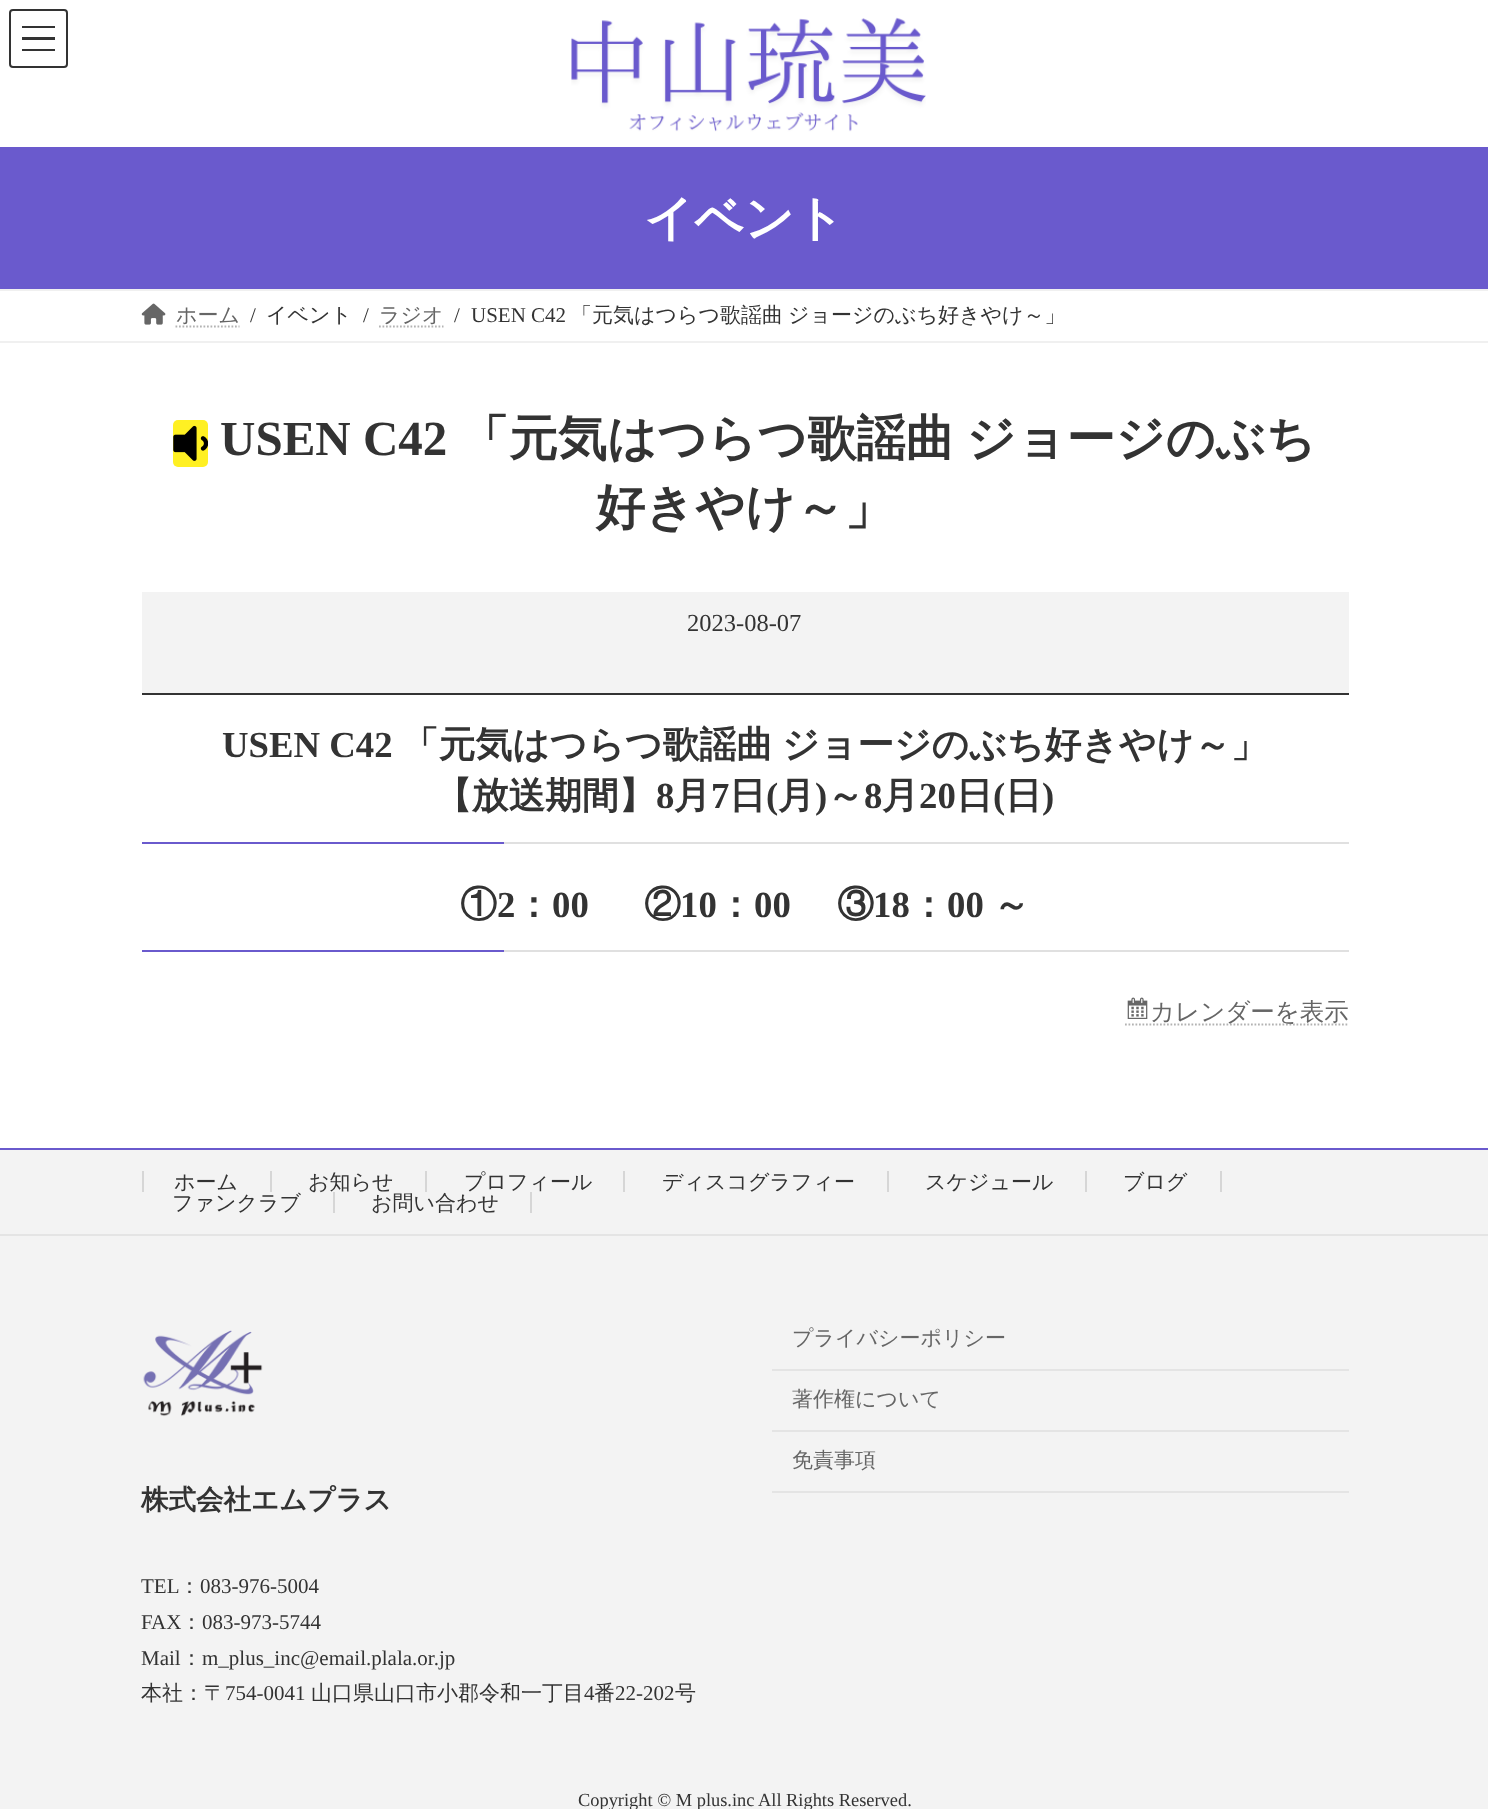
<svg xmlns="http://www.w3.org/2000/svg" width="1488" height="1809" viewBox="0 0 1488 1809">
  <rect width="100%" height="100%" fill="#fff"/>
  <path d="M22 26h33v2H22z" fill="#333"/>
  <path d="M22 37h33v3H22z" fill="#333"/>
  <path d="M22 49h33v2H22z" fill="#333"/>
  <rect x="10" y="10" width="57" height="57" rx="3" fill="none" stroke="#333" stroke-width="2"/>
  <image x="571" y="17" width="355" height="115" href="img/1.png"/>
  <path d="M0 147h1488v142H0z" fill="#6a5acd"/>
  <path d="M0 289h1488v2H0z" fill="#f0f0f0"/>
  <path d="M0 341h1488v2H0z" fill="#f0f0f0"/>
  <image x="141" y="303" width="25" height="22" href="img/2.png"/>
  <path d="M175.5 326.5H239.5" fill="none" stroke="#b3b3b3" stroke-width="1.8" stroke-dasharray="1.75 1.75"/>
  <path d="M379 326.5H443.5" fill="none" stroke="#b3b3b3" stroke-width="1.8" stroke-dasharray="1.75 1.75"/>
  <rect x="173" y="420" width="35" height="47" rx="5" fill="#fff023"/>
  <image x="173" y="425" width="35" height="36" href="img/3.png"/>
  <path d="M142 592h1207v101H142z" fill="#f3f3f3"/>
  <path d="M142 693h1207v2H142z" fill="#333"/>
  <path d="M504 842h845v2H504z" fill="#e0e0e0"/>
  <path d="M142 842h362v2H142z" fill="#6a5acd"/>
  <path d="M504 950h845v2H504z" fill="#e0e0e0"/>
  <path d="M142 950h362v2H142z" fill="#6a5acd"/>
  <image x="1127" y="997" width="21" height="22" href="img/4.png"/>
  <path d="M1125 1024.5H1149.5" fill="none" stroke="#b3b3b3" stroke-width="1.8" stroke-dasharray="1.75 1.75"/>
  <path d="M1149.5 1024.5H1348.5" fill="none" stroke="#b3b3b3" stroke-width="1.8" stroke-dasharray="1.75 1.75"/>
  <path d="M0 1150h1488v659H0z" fill="#f3f3f3"/>
  <path d="M0 1148h1488v2H0z" fill="#6a5acd"/>
  <path d="M0 1234h1488v2H0z" fill="#e4e4e4"/>
  <path d="M270 1171h2v21H270z" fill="#d6d6d6"/>
  <path d="M142 1171h2v21H142z" fill="#d6d6d6"/>
  <path d="M425 1171h2v21H425z" fill="#d6d6d6"/>
  <path d="M623 1171h2v21H623z" fill="#d6d6d6"/>
  <path d="M887 1171h2v21H887z" fill="#d6d6d6"/>
  <path d="M1085 1171h2v21H1085z" fill="#d6d6d6"/>
  <path d="M1220 1171h2v21H1220z" fill="#d6d6d6"/>
  <path d="M530 1192h2v21H530z" fill="#d6d6d6"/>
  <path d="M772 1369h577v2H772z" fill="#e4e4e4"/>
  <path d="M772 1430h577v2H772z" fill="#e4e4e4"/>
  <path d="M772 1491h577v2H772z" fill="#e4e4e4"/>
  <image x="143" y="1330" width="120" height="87" href="img/5.png"/>
  <text x="644" y="235" font-family="WenQuanYi Zen Hei" font-size="49" font-weight="bold" fill="#fff">イベント</text>
  <text x="176" y="322" font-family="WenQuanYi Zen Hei" font-size="21" font-weight="500" fill="#666">ホーム</text>
  <text x="250" y="322" font-family="Liberation Serif" font-size="21" fill="#333">/</text>
  <text x="266" y="322" font-family="WenQuanYi Zen Hei" font-size="21" font-weight="500" fill="#333">イベント</text>
  <text x="363" y="322" font-family="Liberation Serif" font-size="21" fill="#333">/</text>
  <text x="379" y="322" font-family="WenQuanYi Zen Hei" font-size="21" font-weight="500" fill="#666">ラジオ</text>
  <g font-family="Liberation Serif" font-size="21" fill="#333">
    <text x="454" y="322">/</text>
    <text x="471" y="322">USEN C42</text>
  </g>
  <g font-family="WenQuanYi Zen Hei" font-size="21" font-weight="500" fill="#333">
    <text x="571" y="322">「元気はつらつ歌謡曲</text>
    <text x="788" y="322">ジョージのぶち好きやけ～」</text>
  </g>
  <text x="220" y="455" font-family="Liberation Serif" font-size="49" font-weight="bold" fill="#333">USEN C42</text>
  <g font-family="WenQuanYi Zen Hei" font-size="49" font-weight="bold" fill="#333">
    <text x="460" y="455">「元気はつらつ歌謡曲</text>
    <text x="966" y="455">ジョージのぶち</text>
    <text x="596" y="524">好きやけ～」</text>
  </g>
  <text x="687" y="631" font-family="Liberation Serif" font-size="24.5" fill="#333">2023-08-07</text>
  <text x="222" y="757" font-family="Liberation Serif" font-size="36.75" font-weight="bold" fill="#333">USEN C42</text>
  <g font-family="WenQuanYi Zen Hei" font-size="36.75" font-weight="bold" fill="#333">
    <text x="402" y="757">「元気はつらつ歌謡曲</text>
    <text x="782" y="757">ジョージのぶち好きやけ～」</text>
    <text x="435" y="808">【放送期間】</text>
  </g>
  <text x="656" y="808" font-family="Liberation Serif" font-size="36.75" font-weight="bold" fill="#333">8</text>
  <text x="674" y="808" font-family="WenQuanYi Zen Hei" font-size="36.75" font-weight="bold" fill="#333">月</text>
  <text x="711" y="808" font-family="Liberation Serif" font-size="36.75" font-weight="bold" fill="#333">7</text>
  <text x="729" y="808" font-family="WenQuanYi Zen Hei" font-size="36.75" font-weight="bold" fill="#333">日</text>
  <text x="766" y="808" font-family="Liberation Serif" font-size="36.75" font-weight="bold" fill="#333">(</text>
  <text x="778" y="808" font-family="WenQuanYi Zen Hei" font-size="36.75" font-weight="bold" fill="#333">月</text>
  <text x="815" y="808" font-family="Liberation Serif" font-size="36.75" font-weight="bold" fill="#333">)</text>
  <text x="827" y="808" font-family="WenQuanYi Zen Hei" font-size="36.75" font-weight="bold" fill="#333">～</text>
  <text x="864" y="808" font-family="Liberation Serif" font-size="36.75" font-weight="bold" fill="#333">8</text>
  <text x="882" y="808" font-family="WenQuanYi Zen Hei" font-size="36.75" font-weight="bold" fill="#333">月</text>
  <text x="919" y="808" font-family="Liberation Serif" font-size="36.75" font-weight="bold" fill="#333">20</text>
  <text x="956" y="808" font-family="WenQuanYi Zen Hei" font-size="36.75" font-weight="bold" fill="#333">日</text>
  <text x="993" y="808" font-family="Liberation Serif" font-size="36.75" font-weight="bold" fill="#333">(</text>
  <text x="1005" y="808" font-family="WenQuanYi Zen Hei" font-size="36.75" font-weight="bold" fill="#333">日</text>
  <text x="1042" y="808" font-family="Liberation Serif" font-size="36.75" font-weight="bold" fill="#333">)</text>
  <text x="460" y="917" font-family="WenQuanYi Zen Hei" font-size="36.75" font-weight="bold" fill="#333">①</text>
  <text x="497" y="917" font-family="Liberation Serif" font-size="36.75" font-weight="bold" fill="#333">2</text>
  <text x="515" y="917" font-family="WenQuanYi Zen Hei" font-size="36.75" font-weight="bold" fill="#333">：</text>
  <text x="552" y="917" font-family="Liberation Serif" font-size="36.75" font-weight="bold" fill="#333">00</text>
  <text x="644" y="917" font-family="WenQuanYi Zen Hei" font-size="36.75" font-weight="bold" fill="#333">②</text>
  <text x="680" y="917" font-family="Liberation Serif" font-size="36.75" font-weight="bold" fill="#333">10</text>
  <text x="717" y="917" font-family="WenQuanYi Zen Hei" font-size="36.75" font-weight="bold" fill="#333">：</text>
  <text x="754" y="917" font-family="Liberation Serif" font-size="36.75" font-weight="bold" fill="#333">00</text>
  <text x="837" y="917" font-family="WenQuanYi Zen Hei" font-size="36.75" font-weight="bold" fill="#333">③</text>
  <text x="873" y="917" font-family="Liberation Serif" font-size="36.75" font-weight="bold" fill="#333">18</text>
  <text x="910" y="917" font-family="WenQuanYi Zen Hei" font-size="36.75" font-weight="bold" fill="#333">：</text>
  <text x="947" y="917" font-family="Liberation Serif" font-size="36.75" font-weight="bold" fill="#333">00</text>
  <text x="993" y="917" font-family="WenQuanYi Zen Hei" font-size="36.75" font-weight="bold" fill="#333">～</text>
  <text x="1150" y="1020" font-family="WenQuanYi Zen Hei" font-size="24.5" font-weight="500" fill="#666">カレンダーを表示</text>
  <g font-family="WenQuanYi Zen Hei" font-size="21" font-weight="500" fill="#333">
    <text x="174" y="1189">ホーム</text>
    <text x="308" y="1189">お知らせ</text>
    <text x="464" y="1189">プロフィール</text>
    <text x="662" y="1189">ディスコグラフィー</text>
    <text x="925" y="1189">スケジュール</text>
    <text x="1123" y="1189">ブログ</text>
  </g>
  <path d="M333 1192h2v21H333z" fill="#d6d6d6"/>
  <g font-family="WenQuanYi Zen Hei" font-size="21" font-weight="500" fill="#333">
    <text x="172" y="1210">ファンクラブ</text>
    <text x="371" y="1210">お問い合わせ</text>
  </g>
  <g font-family="WenQuanYi Zen Hei" font-size="21" font-weight="500" fill="#666">
    <text x="792" y="1345">プライバシーポリシー</text>
    <text x="792" y="1406">著作権について</text>
    <text x="792" y="1467">免責事項</text>
  </g>
  <text x="141" y="1509" font-family="WenQuanYi Zen Hei" font-size="27.5" font-weight="bold" fill="#333">株式会社エムプラス</text>
  <text x="141" y="1593" font-family="Liberation Serif" font-size="21" fill="#333">TEL</text>
  <text x="179" y="1593" font-family="WenQuanYi Zen Hei" font-size="21" font-weight="500" fill="#333">：</text>
  <g font-family="Liberation Serif" font-size="21" fill="#333">
    <text x="200" y="1593">083-976-5004</text>
    <text x="141" y="1629">FAX</text>
  </g>
  <text x="181" y="1629" font-family="WenQuanYi Zen Hei" font-size="21" font-weight="500" fill="#333">：</text>
  <g font-family="Liberation Serif" font-size="21" fill="#333">
    <text x="202" y="1629">083-973-5744</text>
    <text x="141" y="1665">Mail</text>
  </g>
  <text x="181" y="1665" font-family="WenQuanYi Zen Hei" font-size="21" font-weight="500" fill="#333">：</text>
  <text x="202" y="1665" font-family="Liberation Serif" font-size="21" fill="#333">m_plus_inc@email.plala.or.jp</text>
  <text x="141" y="1700" font-family="WenQuanYi Zen Hei" font-size="21" font-weight="500" fill="#333">本社：〒</text>
  <text x="225" y="1700" font-family="Liberation Serif" font-size="21" fill="#333">754-0041</text>
  <text x="311" y="1700" font-family="WenQuanYi Zen Hei" font-size="21" font-weight="500" fill="#333">山口県山口市小郡令和一丁目</text>
  <text x="584" y="1700" font-family="Liberation Serif" font-size="21" fill="#333">4</text>
  <text x="594" y="1700" font-family="WenQuanYi Zen Hei" font-size="21" font-weight="500" fill="#333">番</text>
  <text x="615" y="1700" font-family="Liberation Serif" font-size="21" fill="#333">22-202</text>
  <text x="675" y="1700" font-family="WenQuanYi Zen Hei" font-size="21" font-weight="500" fill="#333">号</text>
  <text x="578" y="1806" font-family="Liberation Serif" font-size="18.4" fill="#333">Copyright © M plus.inc All Rights Reserved.</text>
</svg>
